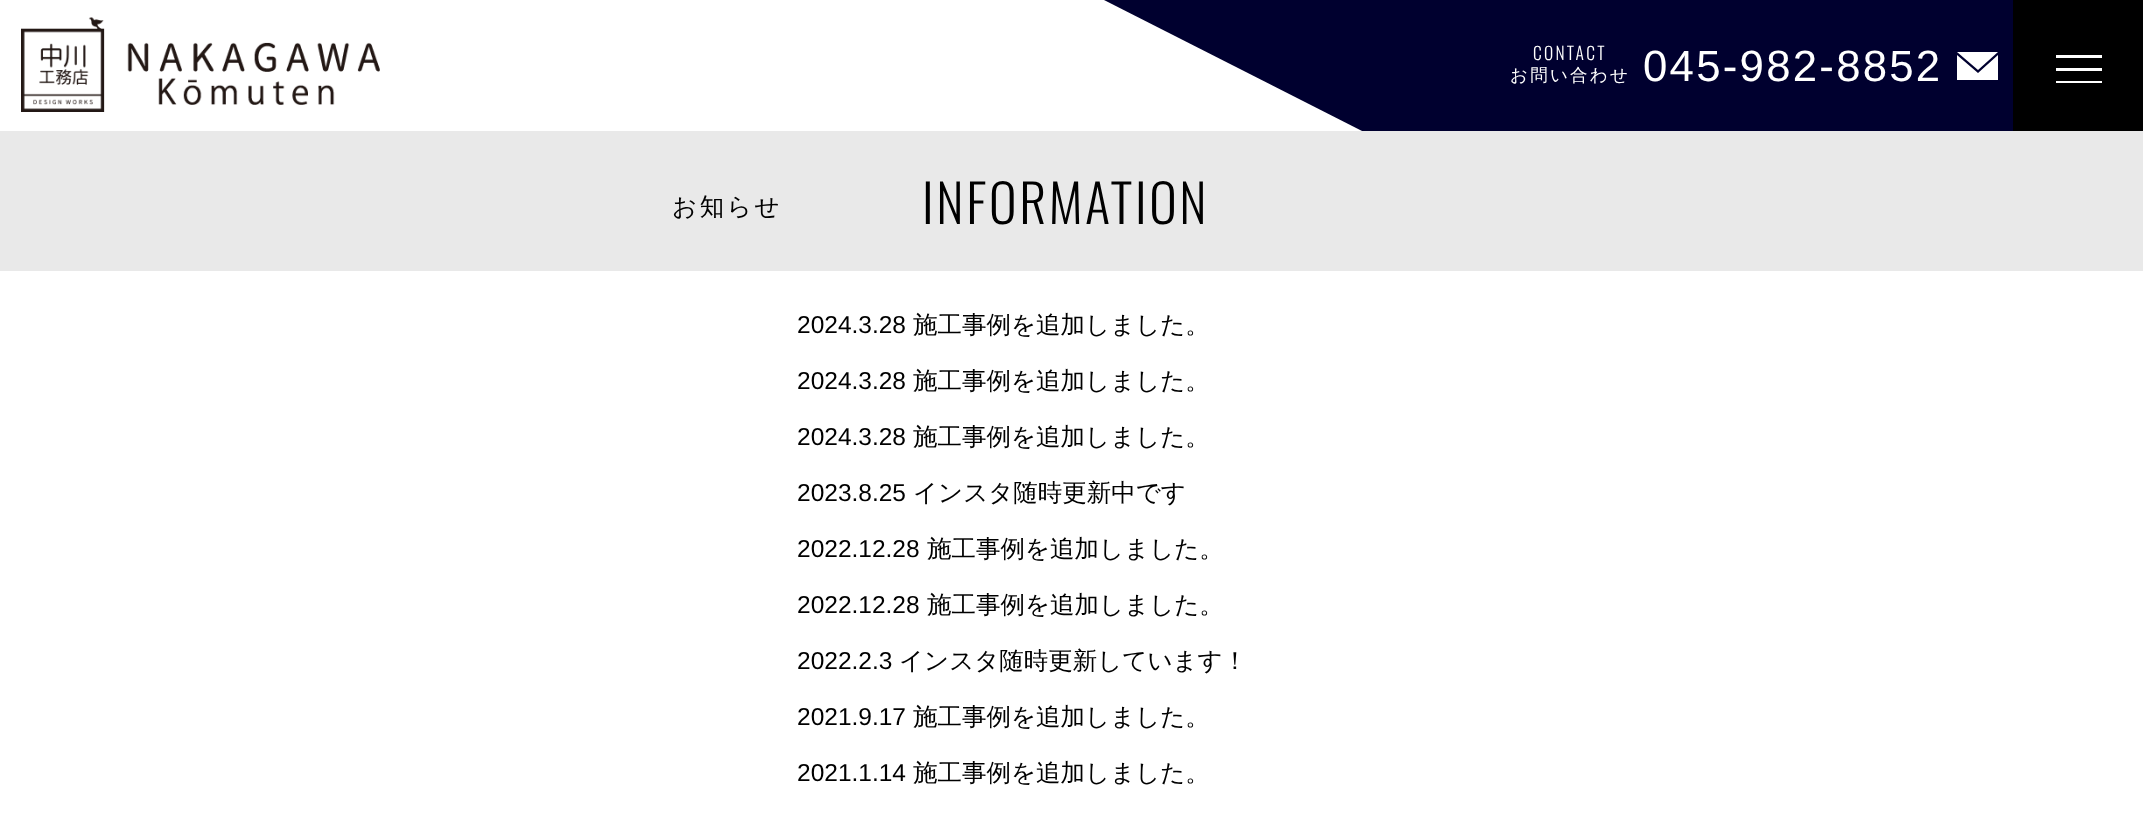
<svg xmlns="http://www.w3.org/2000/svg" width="2143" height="829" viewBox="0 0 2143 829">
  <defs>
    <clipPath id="clip1"><path d="M1104 0h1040v140H1104z"/></clipPath>
  </defs>
  <rect width="100%" height="100%" fill="#fff"/>
  <g clip-path="url(#clip1)">
    <path d="M1104 0H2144V528" fill="#00002f"/>
  </g>
  <image x="21" y="17" width="359" height="95" href="img/1.png"/>
  <path d="M1978 73L1957 55V80H1998V55Z" fill="#fff"/>
  <path d="M1998 52H1957L1978 70Z" fill="#fff"/>
  <path d="M2013 0h130v131H2013z" fill="#000"/>
  <path d="M2056 55h46v3H2056z" fill="#fff"/>
  <path d="M2056 68h46v3H2056z" fill="#fff"/>
  <path d="M2056 81h46v2H2056z" fill="#fff"/>
  <path d="M0 131h2143v140H0z" fill="#e9e9e9"/>
  <text x="1533" y="60" font-family="Oswald" font-size="17.5" font-weight="300" letter-spacing="2.25" fill="#fff">CONTACT</text>
  <text x="1510" y="81" font-family="WenQuanYi Zen Hei" font-size="17.5" font-weight="500" letter-spacing="2.25" fill="#fff">お問い合わせ</text>
  <text x="1643" y="81" font-family="Liberation Sans" font-size="43.75" letter-spacing="2.25" fill="#fff">045-982-8852</text>
  <text x="672" y="215" font-family="WenQuanYi Zen Hei" font-size="24.5" font-weight="500" letter-spacing="2.6" fill="#000">お知らせ</text>
  <text x="922" y="224" font-family="Oswald" font-size="52.5" font-weight="300" letter-spacing="2.6" fill="#000">INFORMATION</text>
  <text x="797" y="333" font-family="Liberation Sans" font-size="24.5" fill="#000">2024.3.28</text>
  <text x="913" y="333" font-family="WenQuanYi Zen Hei" font-size="24.5" font-weight="500" fill="#000">施工事例を追加しました。</text>
  <text x="797" y="389" font-family="Liberation Sans" font-size="24.5" fill="#000">2024.3.28</text>
  <text x="913" y="389" font-family="WenQuanYi Zen Hei" font-size="24.5" font-weight="500" fill="#000">施工事例を追加しました。</text>
  <text x="797" y="445" font-family="Liberation Sans" font-size="24.5" fill="#000">2024.3.28</text>
  <text x="913" y="445" font-family="WenQuanYi Zen Hei" font-size="24.5" font-weight="500" fill="#000">施工事例を追加しました。</text>
  <text x="797" y="501" font-family="Liberation Sans" font-size="24.5" fill="#000">2023.8.25</text>
  <text x="913" y="501" font-family="WenQuanYi Zen Hei" font-size="24.5" font-weight="500" fill="#000">インスタ随時更新中です</text>
  <text x="797" y="557" font-family="Liberation Sans" font-size="24.5" fill="#000">2022.12.28</text>
  <text x="927" y="557" font-family="WenQuanYi Zen Hei" font-size="24.5" font-weight="500" fill="#000">施工事例を追加しました。</text>
  <text x="797" y="613" font-family="Liberation Sans" font-size="24.5" fill="#000">2022.12.28</text>
  <text x="927" y="613" font-family="WenQuanYi Zen Hei" font-size="24.5" font-weight="500" fill="#000">施工事例を追加しました。</text>
  <text x="797" y="669" font-family="Liberation Sans" font-size="24.5" fill="#000">2022.2.3</text>
  <text x="899" y="669" font-family="WenQuanYi Zen Hei" font-size="24.5" font-weight="500" fill="#000">インスタ随時更新しています！</text>
  <text x="797" y="725" font-family="Liberation Sans" font-size="24.5" fill="#000">2021.9.17</text>
  <text x="913" y="725" font-family="WenQuanYi Zen Hei" font-size="24.5" font-weight="500" fill="#000">施工事例を追加しました。</text>
  <text x="797" y="781" font-family="Liberation Sans" font-size="24.5" fill="#000">2021.1.14</text>
  <text x="913" y="781" font-family="WenQuanYi Zen Hei" font-size="24.5" font-weight="500" fill="#000">施工事例を追加しました。</text>
</svg>
